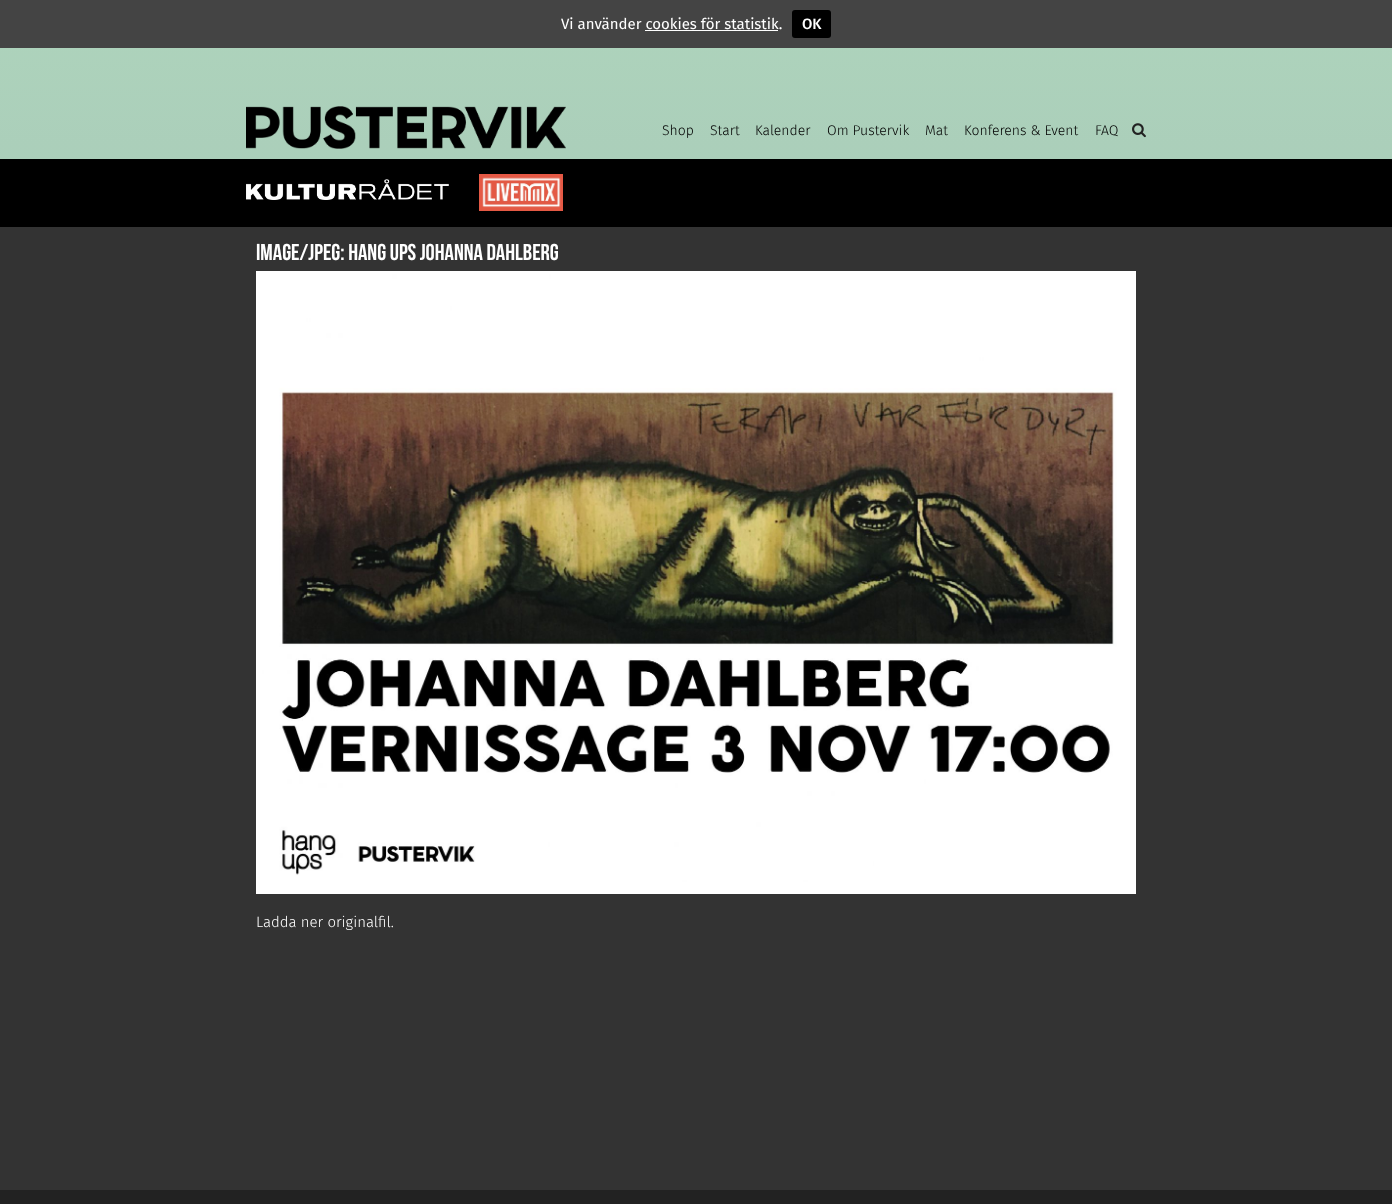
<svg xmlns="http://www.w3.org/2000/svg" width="1392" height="1204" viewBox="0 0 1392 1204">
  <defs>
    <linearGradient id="g1" gradientUnits="userSpaceOnUse" x1="696" y1="0" x2="696" y2="1204"><stop offset="0" stop-color="#aed4bc"/><stop offset="1" stop-color="#96aaac"/></linearGradient>
  </defs>
  <rect width="100%" height="100%" fill="#fff"/>
  <path d="M0 48h1392v111H0z" fill="url(#g1)"/>
  <path d="M0 0h1392v48H0z" fill="#444"/>
  <rect x="792" y="10" width="39" height="28" rx="3" fill="#000"/>
  <path d="M645 30h133v1H645z" fill="#fff"/>
  <path d="M0 159h1392v68H0z" fill="#000"/>
  <image x="246" y="106" width="320" height="43" href="img/1.png"/>
  <image x="1132" y="123" width="14" height="15" href="img/2.png"/>
  <image x="246" y="179" width="203" height="21" href="img/3.png"/>
  <image x="479" y="174" width="84" height="37" href="img/4.png"/>
  <path d="M0 227h1392v963H0z" fill="#333"/>
  <image x="256" y="271" width="880" height="623" href="img/5.png"/>
  <path d="M0 1190h1392v14H0z" fill="#222"/>
  <text x="561" y="29" font-family="Fira Sans" font-size="15" fill="#fff">Vi använder cookies för statistik.</text>
  <text x="802" y="29" font-family="Fira Sans" font-size="15" font-weight="500" fill="#fff">OK</text>
  <g font-family="Fira Sans" font-size="14" font-weight="300" fill="#000">
    <text x="662" y="135">Shop</text>
    <text x="710" y="135">Start</text>
    <text x="755" y="135">Kalender</text>
    <text x="827" y="135">Om Pustervik</text>
    <text x="925" y="135">Mat</text>
    <text x="964" y="135">Konferens &amp; Event</text>
    <text x="1095" y="135">FAQ</text>
  </g>
  <text x="256" y="260" font-family="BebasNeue" font-size="23" fill="#fff">image/jpeg: Hang Ups Johanna Dahlberg</text>
  <text x="256" y="927" font-family="Fira Sans" font-size="15" font-weight="300" fill="#fff">Ladda ner originalfil.</text>
</svg>
